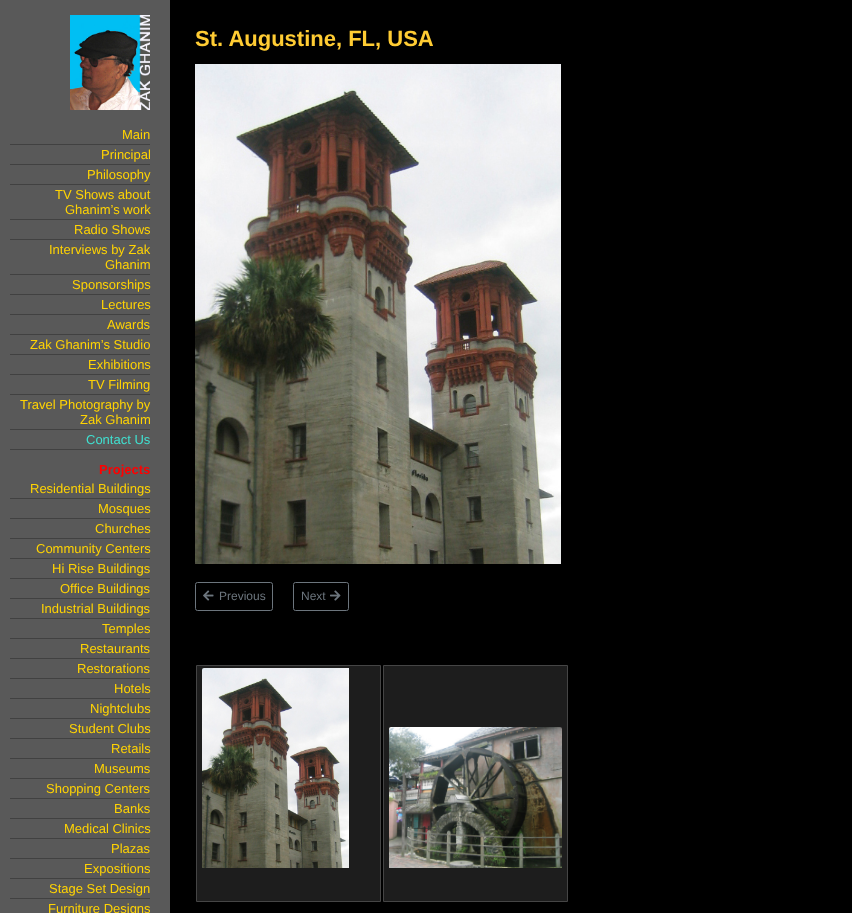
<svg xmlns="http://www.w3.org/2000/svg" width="852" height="913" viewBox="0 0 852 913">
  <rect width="100%" height="100%" fill="#000"/>
  <path d="M0 0h170v913H0z" fill="#595959"/>
  <image x="70" y="15" width="80" height="95" href="img/1.png"/>
  <path d="M10 144h140v1H10z" fill="#414141"/>
  <path d="M10 164h140v1H10z" fill="#414141"/>
  <path d="M10 184h140v1H10z" fill="#414141"/>
  <path d="M10 219h140v1H10z" fill="#414141"/>
  <path d="M10 239h140v1H10z" fill="#414141"/>
  <path d="M10 274h140v1H10z" fill="#414141"/>
  <path d="M10 294h140v1H10z" fill="#414141"/>
  <path d="M10 314h140v1H10z" fill="#414141"/>
  <path d="M10 334h140v1H10z" fill="#414141"/>
  <path d="M10 354h140v1H10z" fill="#414141"/>
  <path d="M10 374h140v1H10z" fill="#414141"/>
  <path d="M10 394h140v1H10z" fill="#414141"/>
  <path d="M10 429h140v1H10z" fill="#414141"/>
  <path d="M10 449h140v1H10z" fill="#414141"/>
  <path d="M10 498h140v1H10z" fill="#414141"/>
  <path d="M10 518h140v1H10z" fill="#414141"/>
  <path d="M10 538h140v1H10z" fill="#414141"/>
  <path d="M10 558h140v1H10z" fill="#414141"/>
  <path d="M10 578h140v1H10z" fill="#414141"/>
  <path d="M10 598h140v1H10z" fill="#414141"/>
  <path d="M10 618h140v1H10z" fill="#414141"/>
  <path d="M10 638h140v1H10z" fill="#414141"/>
  <path d="M10 658h140v1H10z" fill="#414141"/>
  <path d="M10 678h140v1H10z" fill="#414141"/>
  <path d="M10 698h140v1H10z" fill="#414141"/>
  <path d="M10 718h140v1H10z" fill="#414141"/>
  <path d="M10 738h140v1H10z" fill="#414141"/>
  <path d="M10 758h140v1H10z" fill="#414141"/>
  <path d="M10 778h140v1H10z" fill="#414141"/>
  <path d="M10 798h140v1H10z" fill="#414141"/>
  <path d="M10 818h140v1H10z" fill="#414141"/>
  <path d="M10 838h140v1H10z" fill="#414141"/>
  <path d="M10 858h140v1H10z" fill="#414141"/>
  <path d="M10 878h140v1H10z" fill="#414141"/>
  <path d="M10 898h140v1H10z" fill="#414141"/>
  <image x="195" y="64" width="366" height="500" href="img/2.png"/>
  <rect x="195.5" y="582.5" width="77" height="28" rx="2" fill="none" stroke="#6c757d"/>
  <image x="203" y="590" width="11" height="11" href="img/3.png"/>
  <rect x="293.5" y="582.5" width="55" height="28" rx="2" fill="none" stroke="#6c757d"/>
  <image x="330" y="590" width="11" height="11" href="img/4.png"/>
  <path d="M196.5 665.5h184v236H196.5z" fill="#1d1d1d" stroke="#454545"/>
  <image x="202" y="668" width="147" height="200" href="img/5.png"/>
  <path d="M383.5 665.5h184v236H383.5z" fill="#1d1d1d" stroke="#454545"/>
  <image x="389" y="727" width="173" height="141" href="img/6.png"/>
  <g font-family="Liberation Sans" font-size="13" fill="#ffd303">
    <text x="122" y="139">Main</text>
    <text x="101" y="159">Principal</text>
    <text x="87" y="179">Philosophy</text>
    <text x="55" y="199">TV Shows about</text>
    <text x="65" y="214">Ghanim’s work</text>
    <text x="74" y="234">Radio Shows</text>
    <text x="49" y="254">Interviews by Zak</text>
    <text x="105" y="269">Ghanim</text>
    <text x="72" y="289">Sponsorships</text>
    <text x="101" y="309">Lectures</text>
    <text x="107" y="329">Awards</text>
    <text x="30" y="349">Zak Ghanim’s Studio</text>
    <text x="88" y="369">Exhibitions</text>
    <text x="88" y="389">TV Filming</text>
    <text x="20" y="409">Travel Photography by</text>
    <text x="80" y="424">Zak Ghanim</text>
  </g>
  <text x="86" y="444" font-family="Liberation Sans" font-size="13" fill="#40e0d0">Contact Us</text>
  <text x="99" y="474" font-family="Liberation Sans" font-size="13" font-weight="bold" fill="#f00">Projects</text>
  <g font-family="Liberation Sans" font-size="13" fill="#ffd303">
    <text x="30" y="493">Residential Buildings</text>
    <text x="98" y="513">Mosques</text>
    <text x="95" y="533">Churches</text>
    <text x="36" y="553">Community Centers</text>
    <text x="52" y="573">Hi Rise Buildings</text>
    <text x="60" y="593">Office Buildings</text>
    <text x="41" y="613">Industrial Buildings</text>
    <text x="102" y="633">Temples</text>
    <text x="80" y="653">Restaurants</text>
    <text x="77" y="673">Restorations</text>
    <text x="114" y="693">Hotels</text>
    <text x="90" y="713">Nightclubs</text>
    <text x="69" y="733">Student Clubs</text>
    <text x="111" y="753">Retails</text>
    <text x="94" y="773">Museums</text>
    <text x="46" y="793">Shopping Centers</text>
    <text x="114" y="813">Banks</text>
    <text x="64" y="833">Medical Clinics</text>
    <text x="111" y="853">Plazas</text>
    <text x="84" y="873">Expositions</text>
    <text x="49" y="893">Stage Set Design</text>
    <text x="48" y="913">Furniture Designs</text>
  </g>
  <text x="195" y="46" font-family="Liberation Sans" font-size="22" font-weight="bold" fill="#fc3">St. Augustine, FL, USA</text>
  <g font-family="Liberation Sans" font-size="12" fill="#6c757d">
    <text x="219" y="600">Previous</text>
    <text x="301" y="600">Next</text>
  </g>
</svg>
